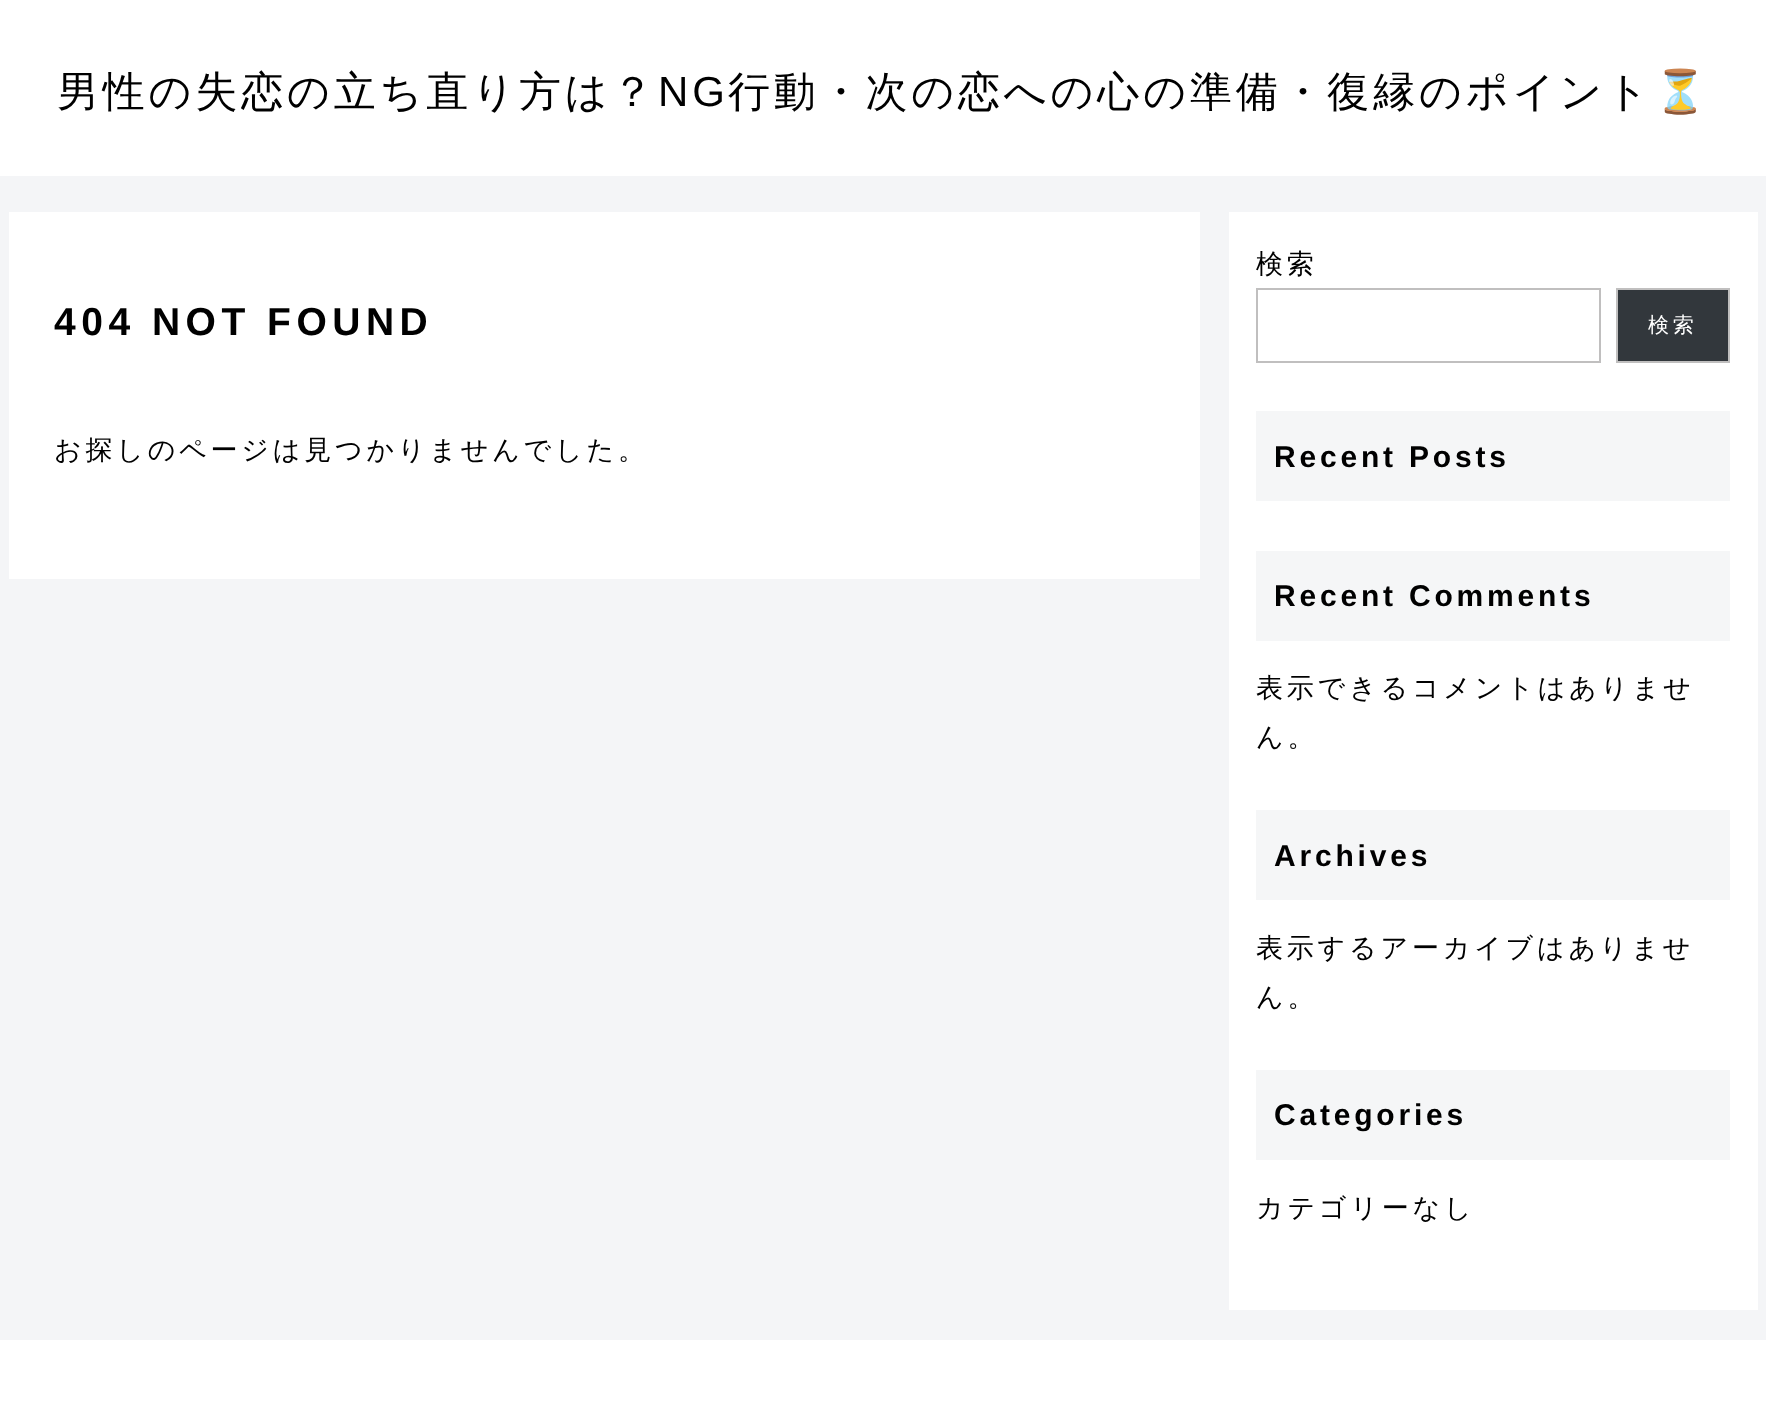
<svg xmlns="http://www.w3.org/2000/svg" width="1766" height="1423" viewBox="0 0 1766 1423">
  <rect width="100%" height="100%" fill="#f4f5f7"/>
  <path d="M0 0h1766v176H0z" fill="#fff"/>
  <path d="M9 212h1191v367H9z" fill="#fff"/>
  <path d="M1229 212h529v1098H1229z" fill="#fff"/>
  <path d="M1257 289h343v73H1257z" fill="none" stroke="#c0bfbf" stroke-width="2"/>
  <path d="M1617 289h112v73H1617z" fill="#32373c" stroke="#c0bfbf" stroke-width="2"/>
  <path d="M1256 411h474v90H1256z" fill="#f5f6f7"/>
  <path d="M1256 551h474v90H1256z" fill="#f5f6f7"/>
  <path d="M1256 810h474v90H1256z" fill="#f5f6f7"/>
  <path d="M1256 1070h474v90H1256z" fill="#f5f6f7"/>
  <path d="M0 1340h1766v83H0z" fill="#fff"/>
  <text x="57" y="106" font-family="WenQuanYi Zen Hei" font-size="42" font-weight="500" letter-spacing="3.8" fill="#000">男性の失恋の立ち直り方は？</text>
  <text x="658" y="106" font-family="Liberation Sans" font-size="42" letter-spacing="3.8" fill="#000">NG</text>
  <text x="728" y="106" font-family="WenQuanYi Zen Hei" font-size="42" font-weight="500" letter-spacing="3.8" fill="#000">行動・次の恋への心の準備・復縁のポイント</text>
  <text x="1654" y="106" font-family="Noto Color Emoji" font-size="42" letter-spacing="3.8" fill="#000">⏳</text>
  <text x="54" y="335" font-family="Liberation Sans" font-size="39" font-weight="bold" letter-spacing="5.5" fill="#000">404 NOT FOUND</text>
  <g font-family="WenQuanYi Zen Hei" font-size="27" font-weight="500" letter-spacing="3.8" fill="#000">
    <text x="54" y="459">お探しのページは見つかりませんでした。</text>
    <text x="1256" y="273">検索</text>
  </g>
  <text x="1648" y="332" font-family="WenQuanYi Zen Hei" font-size="21" font-weight="500" letter-spacing="3.8" fill="#fff">検索</text>
  <g font-family="Liberation Sans" font-size="30" font-weight="bold" letter-spacing="3.8" fill="#000">
    <text x="1274" y="467">Recent Posts</text>
    <text x="1274" y="606">Recent Comments</text>
  </g>
  <g font-family="WenQuanYi Zen Hei" font-size="27" font-weight="500" letter-spacing="3.8" fill="#000">
    <text x="1256" y="697">表示できるコメントはありませ</text>
    <text x="1256" y="746">ん。</text>
  </g>
  <text x="1274" y="866" font-family="Liberation Sans" font-size="30" font-weight="bold" letter-spacing="3.8" fill="#000">Archives</text>
  <g font-family="WenQuanYi Zen Hei" font-size="27" font-weight="500" letter-spacing="3.8" fill="#000">
    <text x="1256" y="957">表示するアーカイブはありませ</text>
    <text x="1256" y="1006">ん。</text>
  </g>
  <text x="1274" y="1125" font-family="Liberation Sans" font-size="30" font-weight="bold" letter-spacing="3.8" fill="#000">Categories</text>
  <text x="1256" y="1217" font-family="WenQuanYi Zen Hei" font-size="27" font-weight="500" letter-spacing="3.8" fill="#000">カテゴリーなし</text>
</svg>
